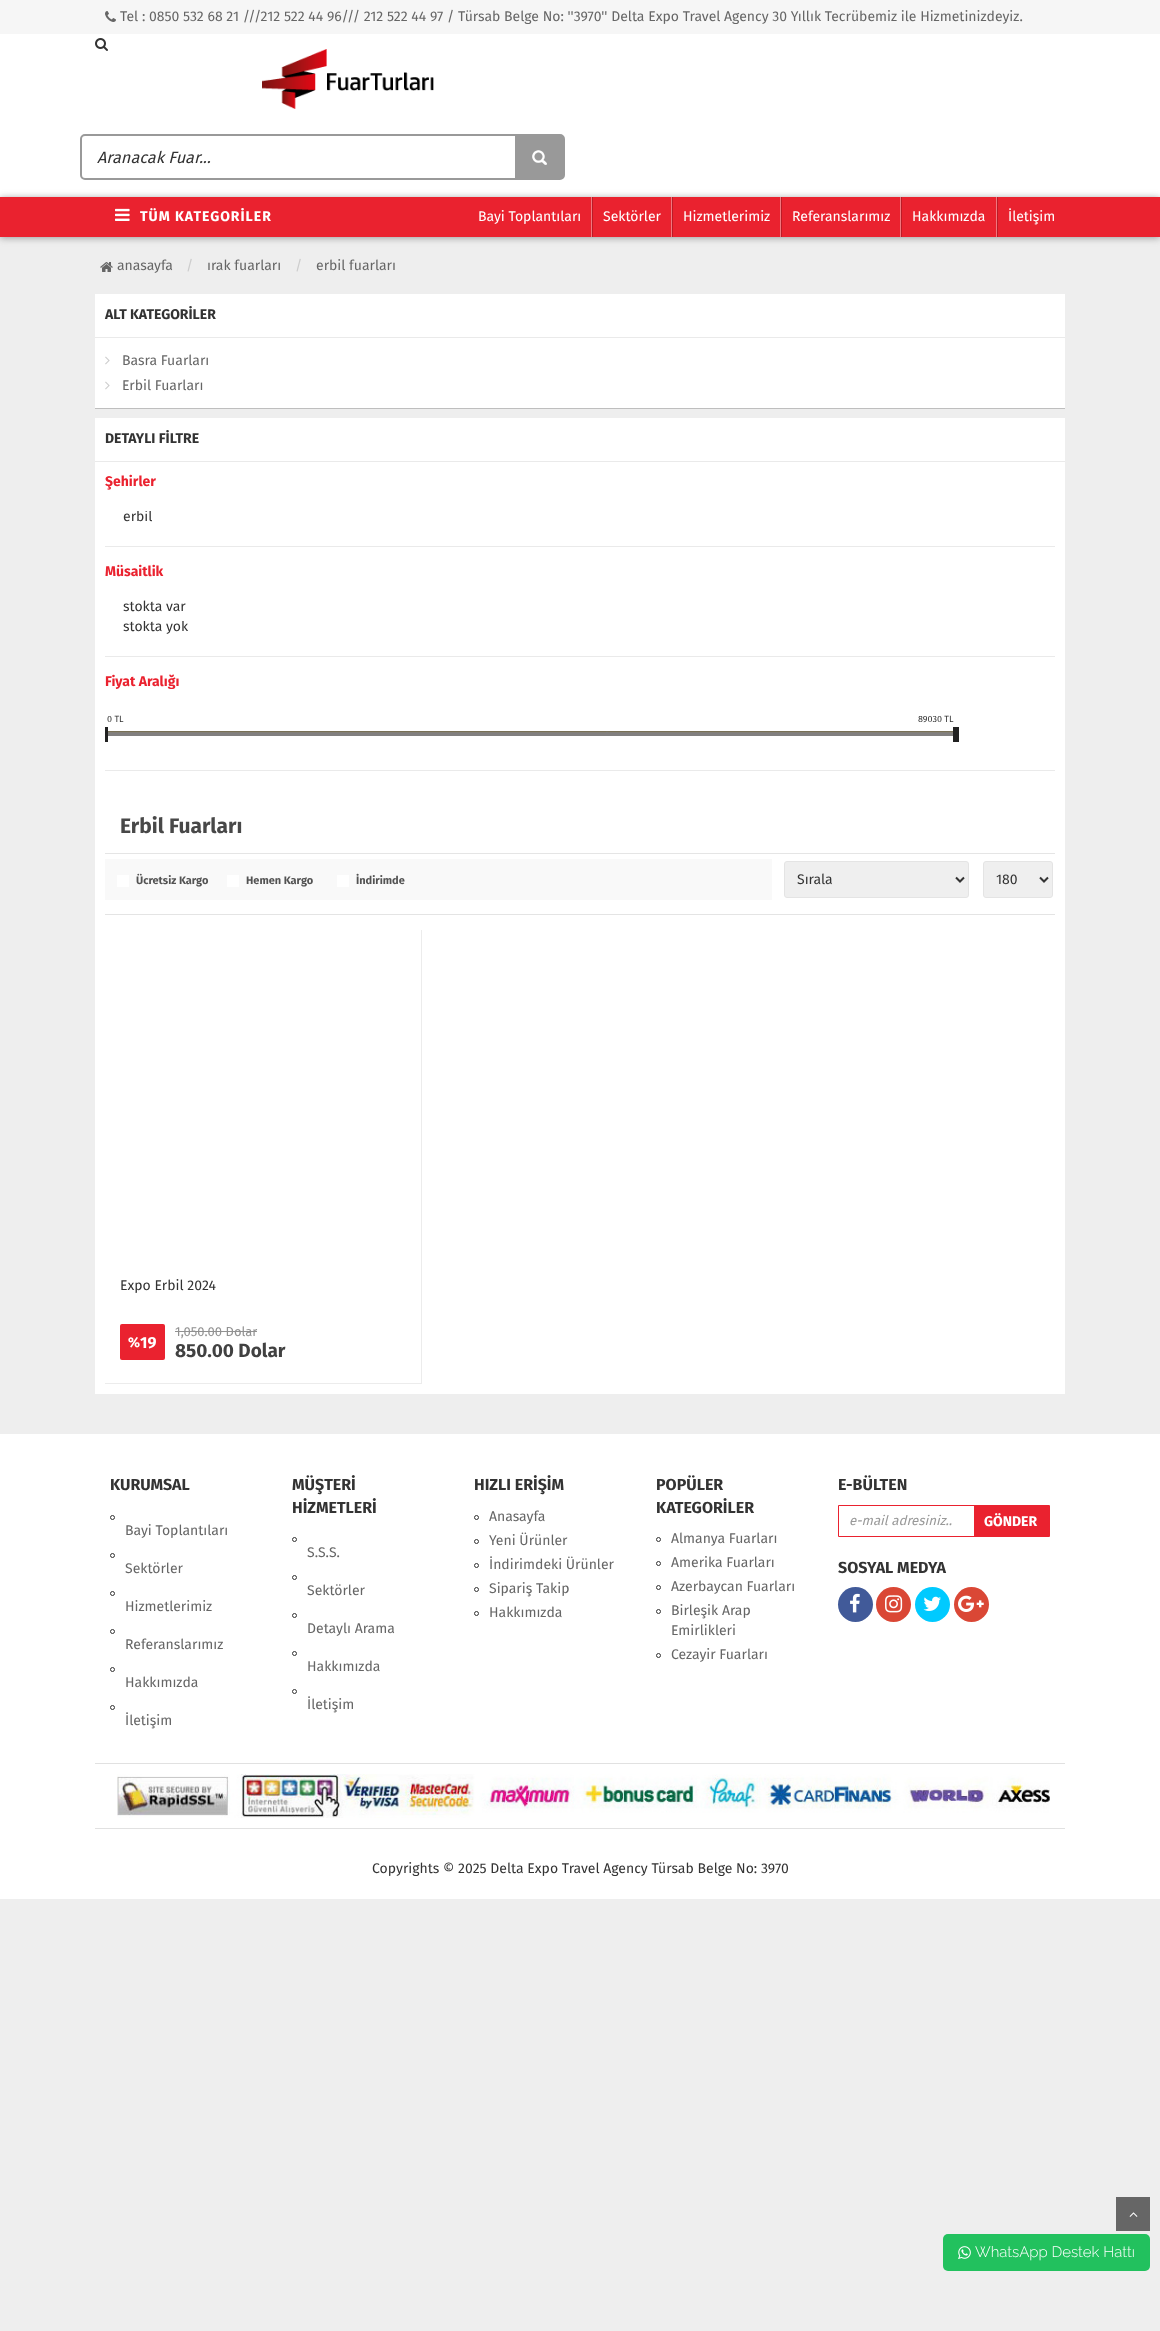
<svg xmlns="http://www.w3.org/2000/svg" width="1160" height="2331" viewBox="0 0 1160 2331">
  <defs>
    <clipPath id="clip1"><path d="M105 511h47v20H105z"/></clipPath>
    <clipPath id="clip2"><path d="M105 621h83v20H105z"/></clipPath>
  </defs>
  <rect width="100%" height="100%" fill="#eee"/>
  <path d="M0 34h1160v163H0z" fill="#fff"/>
  <path d="M0 0h1160v34H0z" fill="#f6f6f6"/>
  <image x="105" y="11" width="11" height="11" href="img/1.png"/>
  <image x="95" y="38" width="13" height="13" href="img/2.png"/>
  <image x="262" y="49" width="172" height="60" href="img/3.png"/>
  <rect x="81" y="135" width="483" height="44" rx="4" fill="none" stroke="#999" stroke-width="2"/>
  <path d="M515 136h48v42H515z" fill="#999"/>
  <image x="532" y="150" width="15" height="15" href="img/4.png"/>
  <path d="M0 198h1160v40H0z" fill="#9c9c9c" filter="blur(3.5px)"/>
  <path d="M0 197h1160v40H0z" fill="#ea222f"/>
  <image x="115" y="208" width="15" height="13" href="img/5.png"/>
  <path d="M591 197h1v40H591z" fill="#f2767e"/>
  <path d="M671 197h1v40H671z" fill="#f2767e"/>
  <path d="M592 197h1v40H592z" fill="#bb1b26"/>
  <path d="M780 197h1v40H780z" fill="#f2767e"/>
  <path d="M672 197h1v40H672z" fill="#bb1b26"/>
  <path d="M900 197h1v40H900z" fill="#f2767e"/>
  <path d="M781 197h1v40H781z" fill="#bb1b26"/>
  <path d="M996 197h1v40H996z" fill="#f2767e"/>
  <path d="M901 197h1v40H901z" fill="#bb1b26"/>
  <path d="M997 197h1v40H997z" fill="#bb1b26"/>
  <image x="100" y="262" width="13" height="10" href="img/6.png"/>
  <path d="M95 295h970v114H95z" fill="#00000033" filter="blur(0.5px)"/>
  <path d="M95 294h970v114H95z" fill="#fff"/>
  <path d="M95 337h970v1H95z" fill="#eaeaea"/>
  <image x="105" y="356" width="5" height="9" href="img/7.png"/>
  <image x="105" y="381" width="5" height="9" href="img/7.png"/>
  <path d="M95 419h970v378H95z" fill="#00000033" filter="blur(0.5px)"/>
  <path d="M95 418h970v976H95z" fill="#fff"/>
  <path d="M95 461h970v1H95z" fill="#eaeaea"/>
  <path d="M105 546h950v1H105z" fill="#eaeaea"/>
  <path d="M105 656h950v1H105z" fill="#eaeaea"/>
  <path d="M105 770h950v1H105z" fill="#eaeaea"/>
  <path d="M105 727h3v15H105z" fill="#212121"/>
  <image x="108" y="731" width="845" height="5" href="img/8.png"/>
  <path d="M953 727h6v15H953z" fill="#212121"/>
  <path d="M105 853h950v1H105z" fill="#e5e5e5"/>
  <path d="M105 859h667v41H105z" fill="#f9f9f9"/>
  <path d="M117 875h12v12H117z" fill="#fff"/>
  <path d="M227 875h12v12H227z" fill="#fff"/>
  <path d="M337 875h12v12H337z" fill="#fff"/>
  <rect x="784.5" y="861.5" width="184" height="36" rx="2.5" fill="#efefef" stroke="#e4e4e4"/>
  <path d="M956 877.5L960 881.5L964 877.5" fill="none" stroke="#333" stroke-width="2"/>
  <rect x="983.5" y="861.5" width="69" height="36" rx="2.5" fill="#efefef" stroke="#e4e4e4"/>
  <path d="M1040 877.5L1044 881.5L1048 877.5" fill="none" stroke="#333" stroke-width="2"/>
  <path d="M105 914h950v1H105z" fill="#e4e4e4"/>
  <path d="M421 930h1v454H421z" fill="#ececec"/>
  <path d="M105 1383h317v1H105z" fill="#ececec"/>
  <path d="M175 1331h82v1H175z" fill="#919191"/>
  <rect x="120" y="1324" width="45" height="36" rx="2" fill="#ea222f"/>
  <path d="M0 1434h1160v465H0z" fill="#fff"/>
  <circle cx="112.5" cy="1517.5" r="2" fill="none" stroke="#333"/>
  <circle cx="112.5" cy="1555.5" r="2" fill="none" stroke="#333"/>
  <circle cx="112.5" cy="1593.5" r="2" fill="none" stroke="#333"/>
  <circle cx="112.5" cy="1631.5" r="2" fill="none" stroke="#333"/>
  <circle cx="112.5" cy="1669.5" r="2" fill="none" stroke="#333"/>
  <circle cx="112.5" cy="1707.5" r="2" fill="none" stroke="#333"/>
  <circle cx="294.5" cy="1539.5" r="2" fill="none" stroke="#333"/>
  <circle cx="294.5" cy="1577.5" r="2" fill="none" stroke="#333"/>
  <circle cx="294.5" cy="1615.5" r="2" fill="none" stroke="#333"/>
  <circle cx="294.5" cy="1653.5" r="2" fill="none" stroke="#333"/>
  <circle cx="294.5" cy="1691.5" r="2" fill="none" stroke="#333"/>
  <circle cx="476.5" cy="1517.5" r="2" fill="none" stroke="#333"/>
  <circle cx="476.5" cy="1541.5" r="2" fill="none" stroke="#333"/>
  <circle cx="476.5" cy="1565.5" r="2" fill="none" stroke="#333"/>
  <circle cx="476.5" cy="1589.5" r="2" fill="none" stroke="#333"/>
  <circle cx="476.5" cy="1613.5" r="2" fill="none" stroke="#333"/>
  <circle cx="658.5" cy="1539.5" r="2" fill="none" stroke="#333"/>
  <circle cx="658.5" cy="1563.5" r="2" fill="none" stroke="#333"/>
  <circle cx="658.5" cy="1587.5" r="2" fill="none" stroke="#333"/>
  <circle cx="658.5" cy="1611.5" r="2" fill="none" stroke="#333"/>
  <circle cx="658.5" cy="1655.5" r="2" fill="none" stroke="#333"/>
  <path d="M838.5 1505.5h211v31H838.5z" fill="none" stroke="#ea222f"/>
  <path d="M974 1506h75v30H974z" fill="#ea222f"/>
  <circle cx="855.5" cy="1604.5" r="17.5" fill="#415a99"/>
  <image x="850" y="1593" width="10" height="20" href="img/9.png"/>
  <circle cx="893.5" cy="1604.5" r="17.5" fill="#da4735"/>
  <image x="885" y="1595" width="18" height="18" href="img/10.png"/>
  <circle cx="932.5" cy="1604.5" r="17.5" fill="#00caff"/>
  <image x="923" y="1596" width="18" height="15" href="img/11.png"/>
  <circle cx="971.5" cy="1604.5" r="17.5" fill="#da4735"/>
  <image x="958" y="1595" width="26" height="17" href="img/12.png"/>
  <path d="M95 1763h970v1H95z" fill="#e1e1e1"/>
  <path d="M95 1828h970v1H95z" fill="#e1e1e1"/>
  <image x="117" y="1774" width="933" height="44" href="img/13.png"/>
  <path d="M1116 2197h34v34H1116z" fill="#666"/>
  <image x="1129" y="2212" width="9" height="5" href="img/14.png"/>
  <rect x="943" y="2234" width="207" height="37" rx="5" fill="#22c15e"/>
  <image x="958" y="2246" width="13" height="13" href="img/15.png"/>
  <text x="120" y="21" font-family="Fira Sans" font-size="14" fill="#666">Tel : 0850 532 68 21 ///212 522 44 96/// 212 522 44 97 / Türsab Belge No: ''3970'' Delta Expo Travel Agency 30 Yıllık Tecrübemiz ile Hizmetinizdeyiz.</text>
  <text x="97" y="163" font-family="Fira Sans" font-size="16.25" font-style="italic" fill="#333">Aranacak Fuar...</text>
  <text x="140" y="221" font-family="Fira Sans" font-size="14" font-weight="bold" letter-spacing="1" fill="#fff">TÜM KATEGORİLER</text>
  <g font-family="Fira Sans" font-size="14" fill="#fff">
    <text x="478" y="221">Bayi Toplantıları</text>
    <text x="603" y="221">Sektörler</text>
    <text x="683" y="221">Hizmetlerimiz</text>
    <text x="792" y="221">Referanslarımız</text>
    <text x="912" y="221">Hakkımızda</text>
    <text x="1008" y="221">İletişim</text>
  </g>
  <text x="117" y="270" font-family="Fira Sans" font-size="14" fill="#666">anasayfa</text>
  <text x="186" y="270" font-family="Fira Sans" font-size="14" fill="#ccc">/</text>
  <text x="207" y="270" font-family="Fira Sans" font-size="14" fill="#666">ırak fuarları</text>
  <text x="295" y="270" font-family="Fira Sans" font-size="14" fill="#ccc">/</text>
  <text x="316" y="270" font-family="Fira Sans" font-size="14" fill="#666">erbil fuarları</text>
  <text x="105" y="319" font-family="Fira Sans" font-size="14" font-weight="bold" fill="#333">ALT KATEGORİLER</text>
  <g font-family="Fira Sans" font-size="14" fill="#666">
    <text x="122" y="365">Basra Fuarları</text>
    <text x="122" y="390">Erbil Fuarları</text>
  </g>
  <text x="105" y="443" font-family="Fira Sans" font-size="14" font-weight="bold" fill="#333">DETAYLI FİLTRE</text>
  <text x="105" y="486" font-family="Fira Sans" font-size="14" font-weight="bold" fill="#ea222f">Şehirler</text>
  <g clip-path="url(#clip1)">
    <text x="123" y="521" font-family="Fira Sans" font-size="14" fill="#333">erbil</text>
  </g>
  <text x="105" y="576" font-family="Fira Sans" font-size="14" font-weight="bold" fill="#ea222f">Müsaitlik</text>
  <text x="123" y="611" font-family="Fira Sans" font-size="14" fill="#333">stokta var</text>
  <g clip-path="url(#clip2)">
    <text x="123" y="631" font-family="Fira Sans" font-size="14" fill="#333">stokta yok</text>
  </g>
  <text x="105" y="686" font-family="Fira Sans" font-size="14" font-weight="bold" fill="#ea222f">Fiyat Aralığı</text>
  <g font-family="Fira Sans" font-size="9" fill="#333">
    <text x="107" y="722">0 TL</text>
    <text x="918" y="722">89030 TL</text>
  </g>
  <text x="120" y="833" font-family="Fira Sans" font-size="21" font-weight="bold" fill="#484848">Erbil Fuarları</text>
  <g font-family="Fira Sans" font-size="11" font-weight="bold" fill="#535353">
    <text x="136" y="884">Ücretsiz Kargo</text>
    <text x="246" y="884">Hemen Kargo</text>
    <text x="356" y="884">İndirimde</text>
  </g>
  <g font-family="Fira Sans" font-size="14" fill="#333">
    <text x="797" y="884">Sırala</text>
    <text x="996" y="884">180</text>
    <text x="120" y="1290">Expo Erbil 2024</text>
  </g>
  <text x="175" y="1336" font-family="Fira Sans" font-size="13" fill="#919191">1,050.00 Dolar</text>
  <text x="128" y="1347" font-family="Fira Sans" font-size="14" font-weight="bold" fill="#fff">%</text>
  <text x="140" y="1348" font-family="Fira Sans" font-size="16" font-weight="bold" fill="#fff">19</text>
  <text x="175" y="1357" font-family="Fira Sans" font-size="19" font-weight="bold" fill="#414141">850.00 Dolar</text>
  <text x="110" y="1490" font-family="Fira Sans" font-size="16" font-weight="bold" fill="#333">KURUMSAL</text>
  <g font-family="Fira Sans" font-size="14" fill="#666">
    <text x="125" y="1535">Bayi Toplantıları</text>
    <text x="125" y="1573">Sektörler</text>
    <text x="125" y="1611">Hizmetlerimiz</text>
    <text x="125" y="1649">Referanslarımız</text>
    <text x="125" y="1687">Hakkımızda</text>
    <text x="125" y="1725">İletişim</text>
  </g>
  <g font-family="Fira Sans" font-size="16" font-weight="bold" fill="#333">
    <text x="292" y="1490">MÜŞTERİ</text>
    <text x="292" y="1513">HİZMETLERİ</text>
  </g>
  <g font-family="Fira Sans" font-size="14" fill="#666">
    <text x="307" y="1557">S.S.S.</text>
    <text x="307" y="1595">Sektörler</text>
    <text x="307" y="1633">Detaylı Arama</text>
    <text x="307" y="1671">Hakkımızda</text>
    <text x="307" y="1709">İletişim</text>
  </g>
  <text x="474" y="1490" font-family="Fira Sans" font-size="16" font-weight="bold" fill="#333">HIZLI ERİŞİM</text>
  <g font-family="Fira Sans" font-size="14" fill="#666">
    <text x="489" y="1521">Anasayfa</text>
    <text x="489" y="1545">Yeni Ürünler</text>
    <text x="489" y="1569">İndirimdeki Ürünler</text>
    <text x="489" y="1593">Sipariş Takip</text>
    <text x="489" y="1617">Hakkımızda</text>
  </g>
  <g font-family="Fira Sans" font-size="16" font-weight="bold" fill="#333">
    <text x="656" y="1490">POPÜLER</text>
    <text x="656" y="1513">KATEGORİLER</text>
  </g>
  <g font-family="Fira Sans" font-size="14" fill="#666">
    <text x="671" y="1543">Almanya Fuarları</text>
    <text x="671" y="1567">Amerika Fuarları</text>
    <text x="671" y="1591">Azerbaycan Fuarları</text>
    <text x="671" y="1615">Birleşik Arap</text>
    <text x="671" y="1635">Emirlikleri</text>
    <text x="671" y="1659">Cezayir Fuarları</text>
  </g>
  <text x="838" y="1490" font-family="Fira Sans" font-size="16" font-weight="bold" fill="#333">E-BÜLTEN</text>
  <text x="849" y="1525" font-family="Fira Sans" font-size="13.25" font-style="italic" fill="#999">e-mail adresiniz..</text>
  <text x="984" y="1526" font-family="Fira Sans" font-size="14" font-weight="bold" fill="#fff">GÖNDER</text>
  <text x="838" y="1573" font-family="Fira Sans" font-size="16" font-weight="bold" fill="#333">SOSYAL MEDYA</text>
  <text x="372" y="1873" font-family="Fira Sans" font-size="14" fill="#333">Copyrights © 2025 Delta Expo Travel Agency Türsab Belge No: 3970</text>
  <text x="975" y="2257" font-family="Raleway" font-size="15" font-weight="300" fill="#fff">WhatsApp Destek Hattı</text>
</svg>
